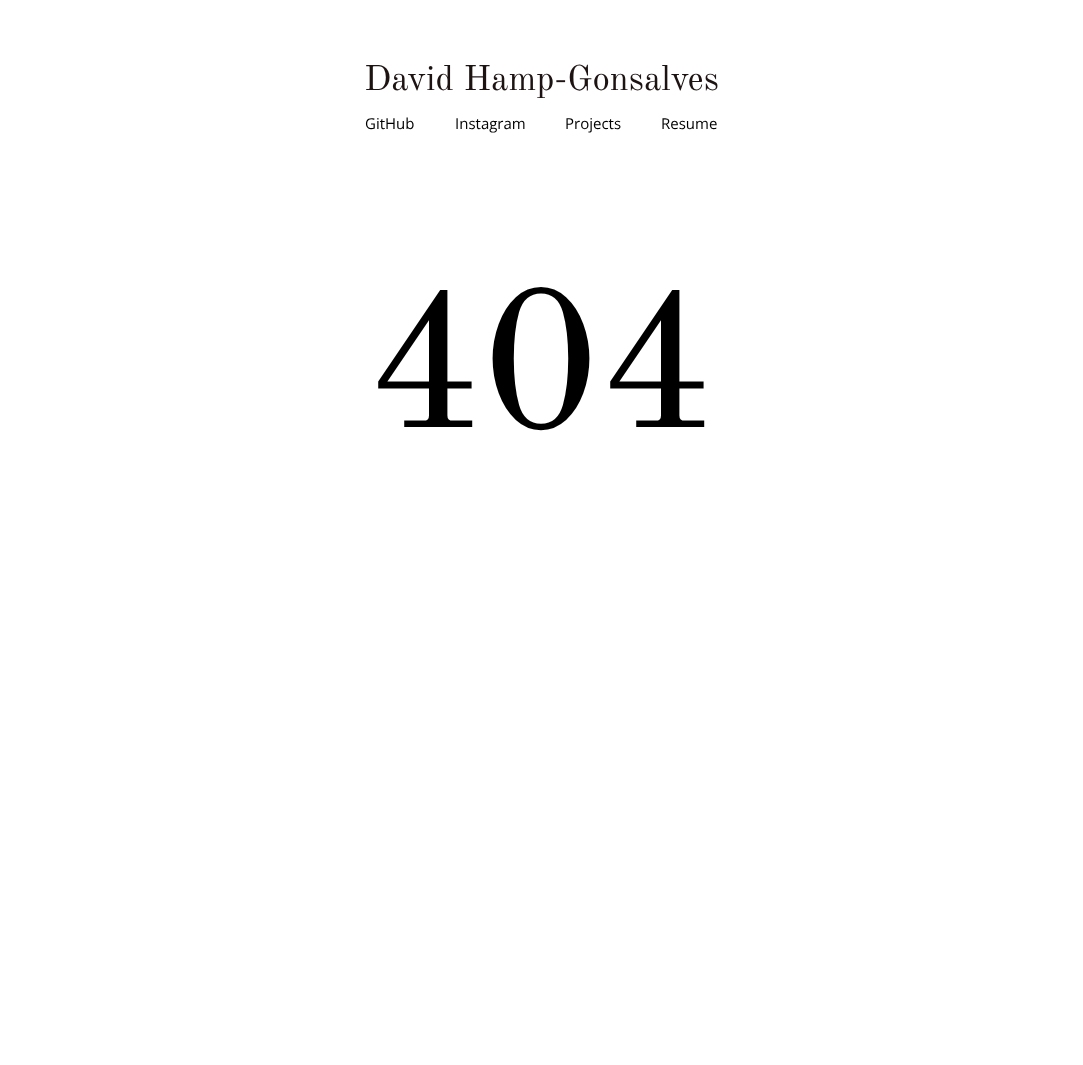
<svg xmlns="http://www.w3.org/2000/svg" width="1083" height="1065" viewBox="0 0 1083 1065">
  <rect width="100%" height="100%" fill="#fff"/>
  <text x="364" y="90" font-family="Old Standard TT" font-size="35" fill="#1d1313">David Hamp-Gonsalves</text>
  <g font-family="Open Sans" font-size="15" fill="#000">
    <text x="365" y="129">GitHub</text>
    <text x="455" y="129">Instagram</text>
    <text x="565" y="129">Projects</text>
    <text x="661" y="129">Resume</text>
  </g>
  <text x="367" y="427" font-family="Old Standard TT" font-size="200" fill="#000">404</text>
</svg>
